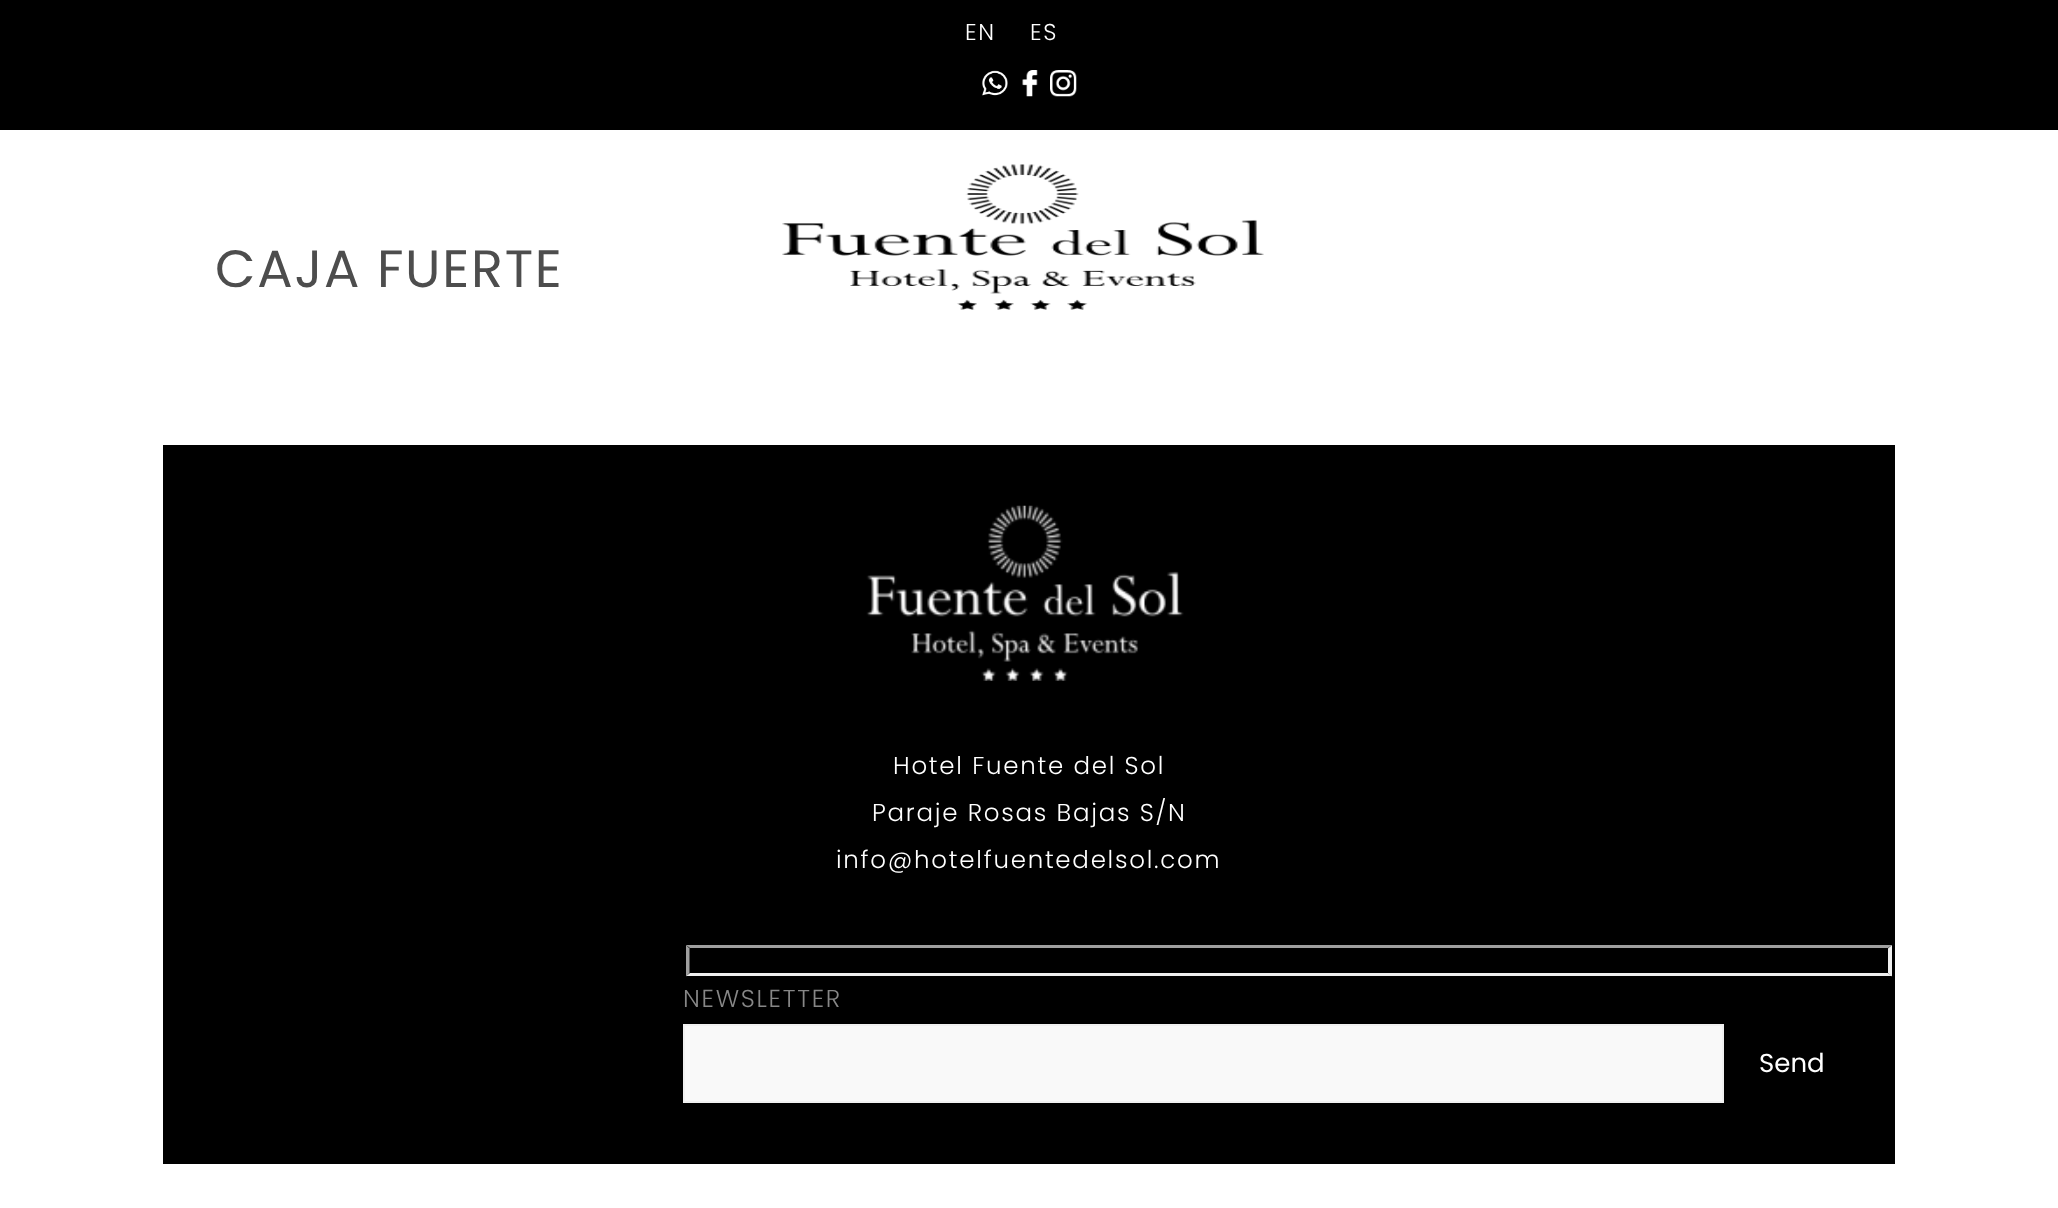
<svg xmlns="http://www.w3.org/2000/svg" width="2058" height="1208" viewBox="0 0 2058 1208">
  <rect width="100%" height="100%" fill="#fff"/>
  <path d="M0 0h2058v130H0z" fill="#000"/>
  <image x="981" y="70" width="27" height="26" href="img/1.png"/>
  <image x="1022" y="70" width="16" height="27" href="img/2.png"/>
  <image x="1050" y="70" width="27" height="27" href="img/3.png"/>
  <image x="782" y="164" width="482" height="146" href="img/4.png"/>
  <path d="M163 445h1732v719H163z" fill="#000"/>
  <image x="866" y="505" width="318" height="176" href="img/5.png"/>
  <path d="M686 945H1892L1888 948H690Z" fill="#9f9f9f"/>
  <path d="M1892 945V976.5L1888 973V948.5Z" fill="#efefef"/>
  <path d="M1892 976H686L690 973H1888Z" fill="#efefef"/>
  <path d="M686 976.5V945L689.5 948.5V973Z" fill="#9f9f9f"/>
  <path d="M684 1025h1039v77H684z" fill="#f9f9f9" stroke="#f1f1f1" stroke-width="2"/>
  <g font-family="Poppins" font-size="23" font-weight="300" letter-spacing="1.75" fill="#fff">
    <text x="965" y="40">EN</text>
    <text x="1030" y="40">ES</text>
  </g>
  <text x="215" y="287" font-family="Poppins" font-size="52.5" letter-spacing="1.75" fill="#4d4d4d">CAJA FUERTE</text>
  <g font-family="Poppins" font-size="24.5" font-weight="300" letter-spacing="1.75" fill="#fff">
    <text x="893" y="774">Hotel Fuente del Sol</text>
    <text x="872" y="821">Paraje Rosas Bajas S/N</text>
    <text x="836" y="868">info@hotelfuentedelsol.com</text>
  </g>
  <text x="683" y="1007" font-family="Poppins" font-size="24.5" font-weight="300" letter-spacing="1.75" fill="#878787">NEWSLETTER</text>
  <text x="1759" y="1072" font-family="Poppins" font-size="26" fill="#fff">Send</text>
</svg>
